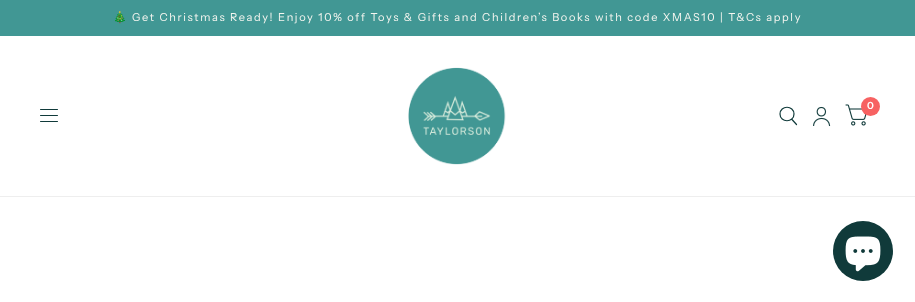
<svg xmlns="http://www.w3.org/2000/svg" width="915" height="302" viewBox="0 0 915 302">
  <rect width="100%" height="100%" fill="#fff"/>
  <path d="M0 0h915v36H0z" fill="#419794"/>
  <path d="M0 196h915v1H0z" fill="#eee"/>
  <image x="408" y="67" width="98" height="98" href="img/1.png"/>
  <path d="M792 119.5L796.5 124.5M794 114C794 123 780 123 780 114C780 105 794 105 794 114Z" fill="none" stroke="#103a3a" stroke-width="1.2" stroke-linecap="round" stroke-linejoin="round"/>
  <image x="813" y="106" width="18" height="21" href="img/2.png"/>
  <image x="845" y="104" width="22" height="22" href="img/3.png"/>
  <circle cx="870.5" cy="106.5" r="9.5" fill="#f76262"/>
  <rect x="40" y="109" width="18" height="1" rx="0.5" fill="#103a3a"/>
  <rect x="40" y="115" width="18" height="1" rx="0.5" fill="#103a3a"/>
  <rect x="40" y="121" width="18" height="1" rx="0.5" fill="#103a3a"/>
  <circle cx="863" cy="251" r="30" fill="#103a3a"/>
  <image x="845" y="236" width="36" height="36" href="img/4.png"/>
  <text x="113" y="21" font-family="Noto Color Emoji" font-size="11" letter-spacing="1.65" fill="#f6f6f0">🎄</text>
  <text x="132" y="21" font-family="Instrument Sans" font-size="11" letter-spacing="1.65" fill="#f6f6f0">Get Christmas Ready! Enjoy 10% off Toys &amp; Gifts and Children’s Books with code XMAS10 | T&amp;Cs apply</text>
  <text x="867" y="109" font-family="Instrument Sans" font-size="10" font-weight="600" fill="#fff">0</text>
</svg>
